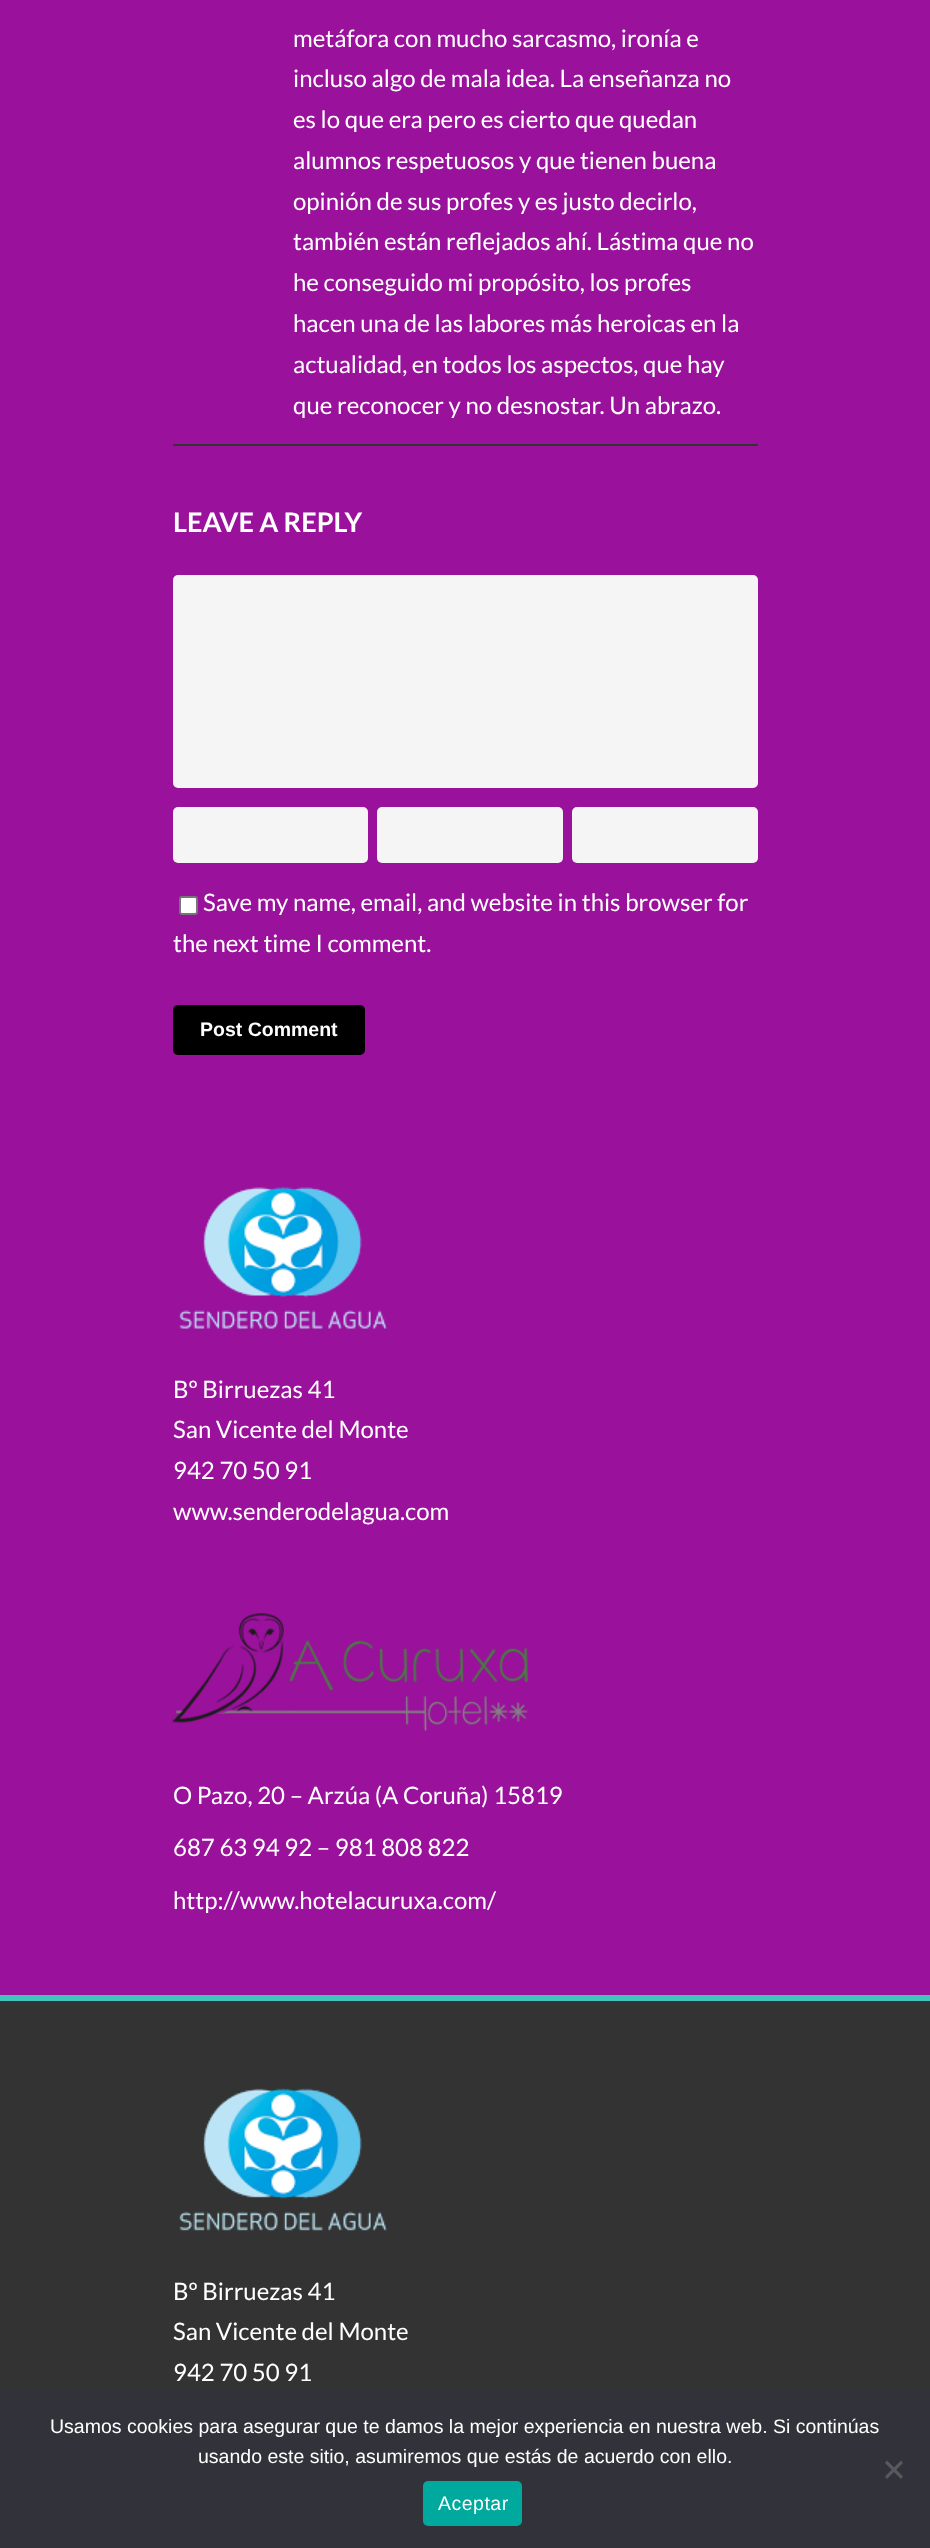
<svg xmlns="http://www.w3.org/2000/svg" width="930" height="2548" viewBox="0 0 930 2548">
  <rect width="100%" height="100%" fill="#9a119c"/>
  <path d="M173 444h585v2H173z" fill="#343434"/>
  <rect x="173" y="575" width="585" height="213" rx="5" fill="#f5f5f5"/>
  <rect x="173" y="807" width="195" height="56" rx="5" fill="#f5f5f5"/>
  <rect x="377" y="807" width="186" height="56" rx="5" fill="#f5f5f5"/>
  <rect x="572" y="807" width="186" height="56" rx="5" fill="#f5f5f5"/>
  <rect x="180" y="897" width="17" height="17" rx="2" fill="#fff" stroke="#767676" stroke-width="2"/>
  <rect x="173" y="1005" width="192" height="50" rx="5" fill="#000"/>
  <image x="179" y="1187" width="209" height="142" href="img/1.png"/>
  <image x="172" y="1613" width="356" height="118" href="img/2.png"/>
  <path d="M0 2001h930v389H0z" fill="#333"/>
  <path d="M0 1995h930v6H0z" fill="#40c4bb"/>
  <image x="179" y="2088" width="209" height="143" href="img/3.png"/>
  <path d="M0 2390h930v158H0z" fill="#32323a"/>
  <path d="M901 2460.5L903 2463L887 2479L885 2476.5Z" fill="#59595d"/>
  <path d="M885 2463L887 2460.5L903 2476.5L901 2479Z" fill="#59595d"/>
  <rect x="423" y="2481" width="99" height="45" rx="5" fill="#00a99d"/>
  <g font-family="Lato" font-size="24" fill="#fff">
    <text x="293" y="47">metáfora con mucho sarcasmo, ironía e</text>
    <text x="293" y="87">incluso algo de mala idea. La enseñanza no</text>
    <text x="293" y="128">es lo que era pero es cierto que quedan</text>
    <text x="293" y="169">alumnos respetuosos y que tienen buena</text>
    <text x="293" y="210">opinión de sus profes y es justo decirlo,</text>
    <text x="293" y="250">también están reflejados ahí. Lástima que no</text>
    <text x="293" y="291">he conseguido mi propósito, los profes</text>
    <text x="293" y="332">hacen una de las labores más heroicas en la</text>
    <text x="293" y="373">actualidad, en todos los aspectos, que hay</text>
    <text x="293" y="414">que reconocer y no desnostar. Un abrazo.</text>
  </g>
  <text x="173" y="532" font-family="Lato" font-size="27" font-weight="bold" fill="#fff">LEAVE A REPLY</text>
  <g font-family="Lato" font-size="24" fill="#fff">
    <text x="203" y="911">Save my name, email, and website in this browser for</text>
    <text x="173" y="952">the next time I comment.</text>
  </g>
  <text x="200" y="1036" font-family="Liberation Sans" font-size="19.5" font-weight="bold" fill="#fff">Post Comment</text>
  <g font-family="Lato" font-size="24" fill="#fff">
    <text x="173" y="1398">Bº Birruezas 41</text>
    <text x="173" y="1438">San Vicente del Monte</text>
    <text x="173" y="1479">942 70 50 91</text>
    <text x="173" y="1520">www.senderodelagua.com</text>
    <text x="173" y="1804">O Pazo, 20 – Arzúa (A Coruña) 15819</text>
    <text x="173" y="1856">687 63 94 92 – 981 808 822</text>
    <text x="173" y="1909">http://www.hotelacuruxa.com/</text>
    <text x="173" y="2300">Bº Birruezas 41</text>
    <text x="173" y="2340">San Vicente del Monte</text>
    <text x="173" y="2381">942 70 50 91</text>
  </g>
  <g font-family="Liberation Sans" font-size="19.5" fill="#fff">
    <text x="50" y="2433">Usamos cookies para asegurar que te damos la mejor experiencia en nuestra web. Si continúas</text>
    <text x="198" y="2463">usando este sitio, asumiremos que estás de acuerdo con ello.</text>
  </g>
  <text x="438" y="2510" font-family="Liberation Sans" font-size="19.5" letter-spacing="0.5" fill="#fff">Aceptar</text>
</svg>
